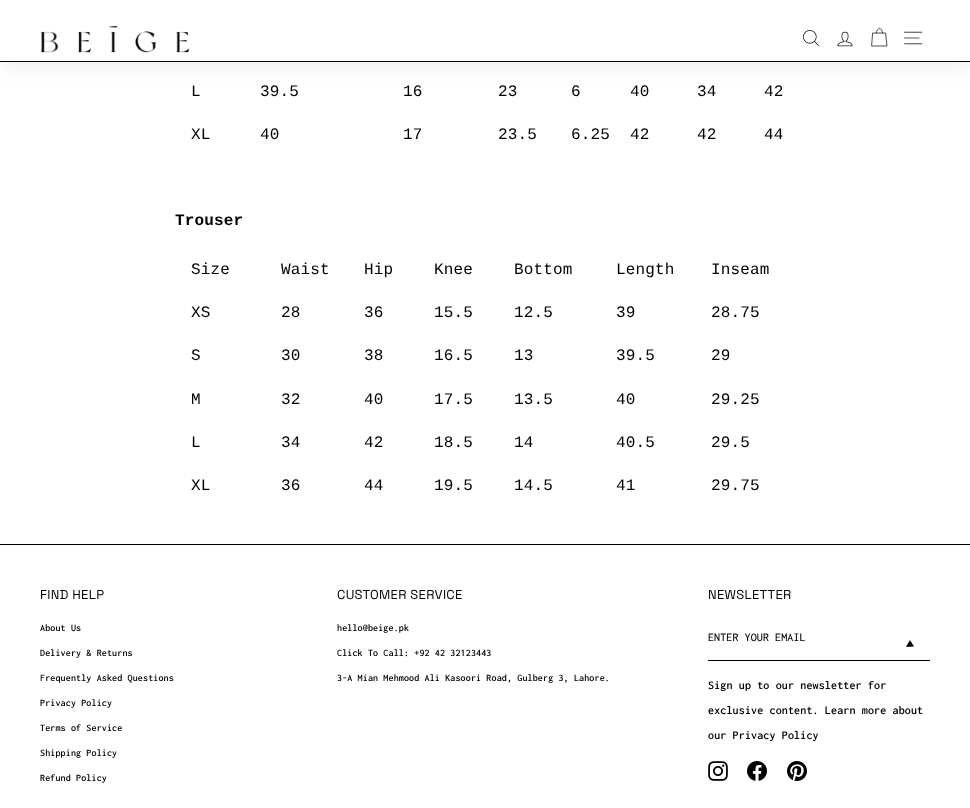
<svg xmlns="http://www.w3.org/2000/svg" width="970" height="808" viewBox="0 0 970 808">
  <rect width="100%" height="100%" fill="#fff"/>
  <path d="M0 0h970v62H0z" fill="#0000001a" filter="blur(12.5px)"/>
  <path d="M0 0h970v61H0z" fill="#fff"/>
  <path d="M0 61h970v1H0z" fill="#000"/>
  <image x="40" y="26" width="150" height="27" href="img/1.png"/>
  <image x="803" y="30" width="16" height="16" href="img/2.png"/>
  <image x="837" y="31" width="16" height="16" href="img/3.png"/>
  <path d="M876.5 33C876.5 27 882.5 27 882.5 33M873 33H885.5L887 46H872Z" fill="none" stroke="#000" stroke-width="0.7" stroke-linecap="round" stroke-linejoin="round"/>
  <image x="904" y="31" width="19" height="14" href="img/4.png"/>
  <path d="M0 544h970v1H0z" fill="#000"/>
  <path d="M708 660h222v1H708z" fill="#000"/>
  <path d="M910 640L914 646.5L906 647Z" fill="#000"/>
  <image x="708" y="761" width="20" height="20" href="img/5.png"/>
  <image x="747" y="761" width="20" height="20" href="img/6.png"/>
  <image x="787" y="761" width="20" height="20" href="img/7.png"/>
  <g font-family="Liberation Mono" font-size="16" letter-spacing="0.15" fill="#000">
    <text x="191" y="96">L</text>
    <text x="260" y="96">39.5</text>
    <text x="403" y="96">16</text>
    <text x="498" y="96">23</text>
    <text x="571" y="96">6</text>
    <text x="630" y="96">40</text>
    <text x="697" y="96">34</text>
    <text x="764" y="96">42</text>
    <text x="191" y="139">XL</text>
    <text x="260" y="139">40</text>
    <text x="403" y="139">17</text>
    <text x="498" y="139">23.5</text>
    <text x="571" y="139">6.25</text>
    <text x="630" y="139">42</text>
    <text x="697" y="139">42</text>
    <text x="764" y="139">44</text>
  </g>
  <text x="175" y="225" font-family="Liberation Mono" font-size="16" font-weight="bold" letter-spacing="0.15" fill="#000">Trouser</text>
  <g font-family="Liberation Mono" font-size="16" letter-spacing="0.15" fill="#000">
    <text x="191" y="274">Size</text>
    <text x="281" y="274">Waist</text>
    <text x="364" y="274">Hip</text>
    <text x="434" y="274">Knee</text>
    <text x="514" y="274">Bottom</text>
    <text x="616" y="274">Length</text>
    <text x="711" y="274">Inseam</text>
    <text x="191" y="317">XS</text>
    <text x="281" y="317">28</text>
    <text x="364" y="317">36</text>
    <text x="434" y="317">15.5</text>
    <text x="514" y="317">12.5</text>
    <text x="616" y="317">39</text>
    <text x="711" y="317">28.75</text>
    <text x="191" y="360">S</text>
    <text x="281" y="360">30</text>
    <text x="364" y="360">38</text>
    <text x="434" y="360">16.5</text>
    <text x="514" y="360">13</text>
    <text x="616" y="360">39.5</text>
    <text x="711" y="360">29</text>
    <text x="191" y="404">M</text>
    <text x="281" y="404">32</text>
    <text x="364" y="404">40</text>
    <text x="434" y="404">17.5</text>
    <text x="514" y="404">13.5</text>
    <text x="616" y="404">40</text>
    <text x="711" y="404">29.25</text>
    <text x="191" y="447">L</text>
    <text x="281" y="447">34</text>
    <text x="364" y="447">42</text>
    <text x="434" y="447">18.5</text>
    <text x="514" y="447">14</text>
    <text x="616" y="447">40.5</text>
    <text x="711" y="447">29.5</text>
    <text x="191" y="490">XL</text>
    <text x="281" y="490">36</text>
    <text x="364" y="490">44</text>
    <text x="434" y="490">19.5</text>
    <text x="514" y="490">14.5</text>
    <text x="616" y="490">41</text>
    <text x="711" y="490">29.75</text>
  </g>
  <text x="40" y="599" font-family="Space Grotesk" font-size="13" letter-spacing="0.3" fill="#000">FIND HELP</text>
  <g font-family="Inconsolata" font-size="10" font-weight="600" letter-spacing="0.15" fill="#000">
    <text x="40" y="631">About Us</text>
    <text x="40" y="656">Delivery &amp; Returns</text>
    <text x="40" y="681">Frequently Asked Questions</text>
    <text x="40" y="706">Privacy Policy</text>
    <text x="40" y="731">Terms of Service</text>
    <text x="40" y="756">Shipping Policy</text>
    <text x="40" y="781">Refund Policy</text>
  </g>
  <text x="337" y="599" font-family="Space Grotesk" font-size="13" letter-spacing="0.3" fill="#000">CUSTOMER SERVICE</text>
  <g font-family="Inconsolata" font-size="10" font-weight="600" letter-spacing="0.15" fill="#000">
    <text x="337" y="631">hello@beige.pk</text>
    <text x="337" y="656">Click To Call: +92 42 32123443</text>
    <text x="337" y="681">3-A Mian Mehmood Ali Kasoori Road, Gulberg 3, Lahore.</text>
  </g>
  <text x="708" y="599" font-family="Space Grotesk" font-size="13" letter-spacing="0.3" fill="#000">NEWSLETTER</text>
  <text x="708" y="641" font-family="Inconsolata" font-size="12" font-weight="500" letter-spacing="0.1" fill="#000">ENTER YOUR EMAIL</text>
  <g font-family="Inconsolata" font-size="12" font-weight="600" letter-spacing="0.15" fill="#000">
    <text x="708" y="689">Sign up to our newsletter for</text>
    <text x="708" y="714">exclusive content. Learn more about</text>
    <text x="708" y="739">our Privacy Policy</text>
  </g>
</svg>
